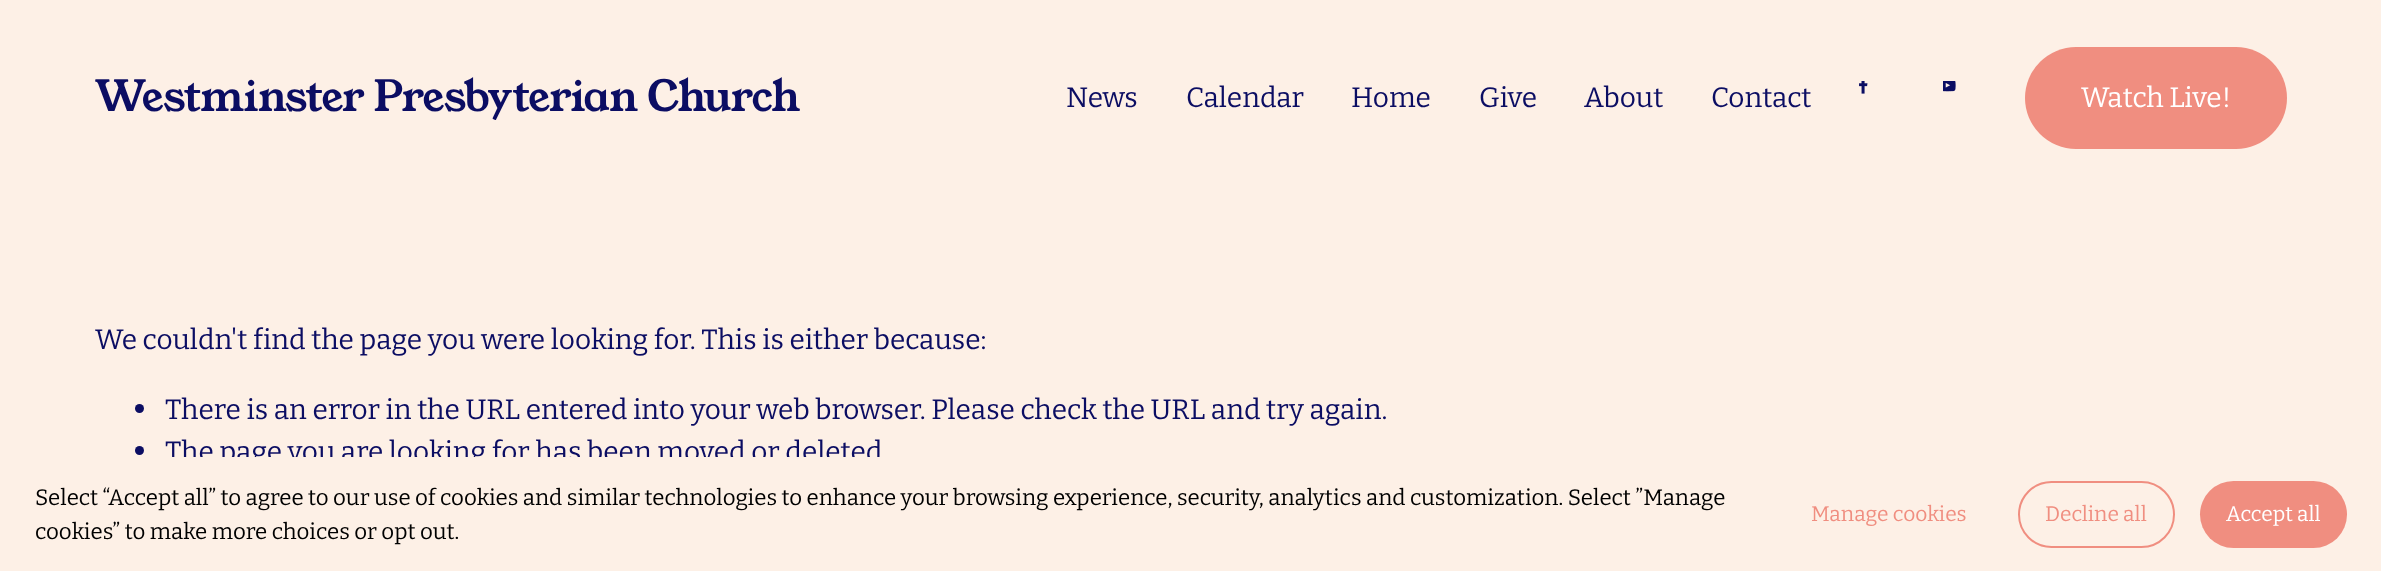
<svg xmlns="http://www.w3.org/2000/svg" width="2381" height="571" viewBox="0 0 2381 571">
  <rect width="100%" height="100%" fill="#fdf0e6"/>
  <image x="1859" y="81" width="9" height="13" href="img/1.png"/>
  <image x="1943" y="81" width="13" height="11" href="img/2.png"/>
  <rect x="2025" y="47" width="262" height="102" rx="51" fill="#f08e80"/>
  <circle cx="139.5" cy="408.5" r="4.5" fill="#0b0d63"/>
  <circle cx="139.5" cy="450.5" r="4.5" fill="#0b0d63"/>
  <rect x="2019" y="482" width="155" height="65" rx="32.5" fill="none" stroke="#f08e80" stroke-width="2"/>
  <rect x="2200" y="481" width="147" height="67" rx="33.5" fill="#f08e80"/>
  <text x="95" y="111" font-family="Young Serif" font-size="42.25" letter-spacing="-0.85" fill="#0b0d63">Westminster Presbyterian Church</text>
  <g font-family="Bitter" font-size="28" fill="#0b0d63">
    <text x="1066" y="107">News</text>
    <text x="1186" y="107">Calendar</text>
    <text x="1351" y="107">Home</text>
    <text x="1479" y="107">Give</text>
    <text x="1584" y="107">About</text>
    <text x="1711" y="107">Contact</text>
  </g>
  <text x="2081" y="107" font-family="Bitter" font-size="28" fill="#fff">Watch Live!</text>
  <g font-family="Bitter" font-size="28" fill="#0b0d63">
    <text x="95" y="349">We couldn't find the page you were looking for. This is either because:</text>
    <text x="165" y="419">There is an error in the URL entered into your web browser. Please check the URL and try again.</text>
    <text x="165" y="461">The page you are looking for has been moved or deleted</text>
  </g>
  <path d="M169 457h713v11H169z" fill="#fdf0e6"/>
  <g font-family="Bitter" font-size="22.28" fill="#000">
    <text x="35" y="505">Select “Accept all” to agree to our use of cookies and similar technologies to enhance your browsing experience, security, analytics and customization. Select ”Manage</text>
    <text x="35" y="539">cookies” to make more choices or opt out.</text>
  </g>
  <g font-family="Bitter" font-size="21" fill="#f08e80">
    <text x="1811" y="521">Manage cookies</text>
    <text x="2045" y="521">Decline all</text>
  </g>
  <text x="2226" y="521" font-family="Bitter" font-size="21" fill="#fff">Accept all</text>
</svg>
